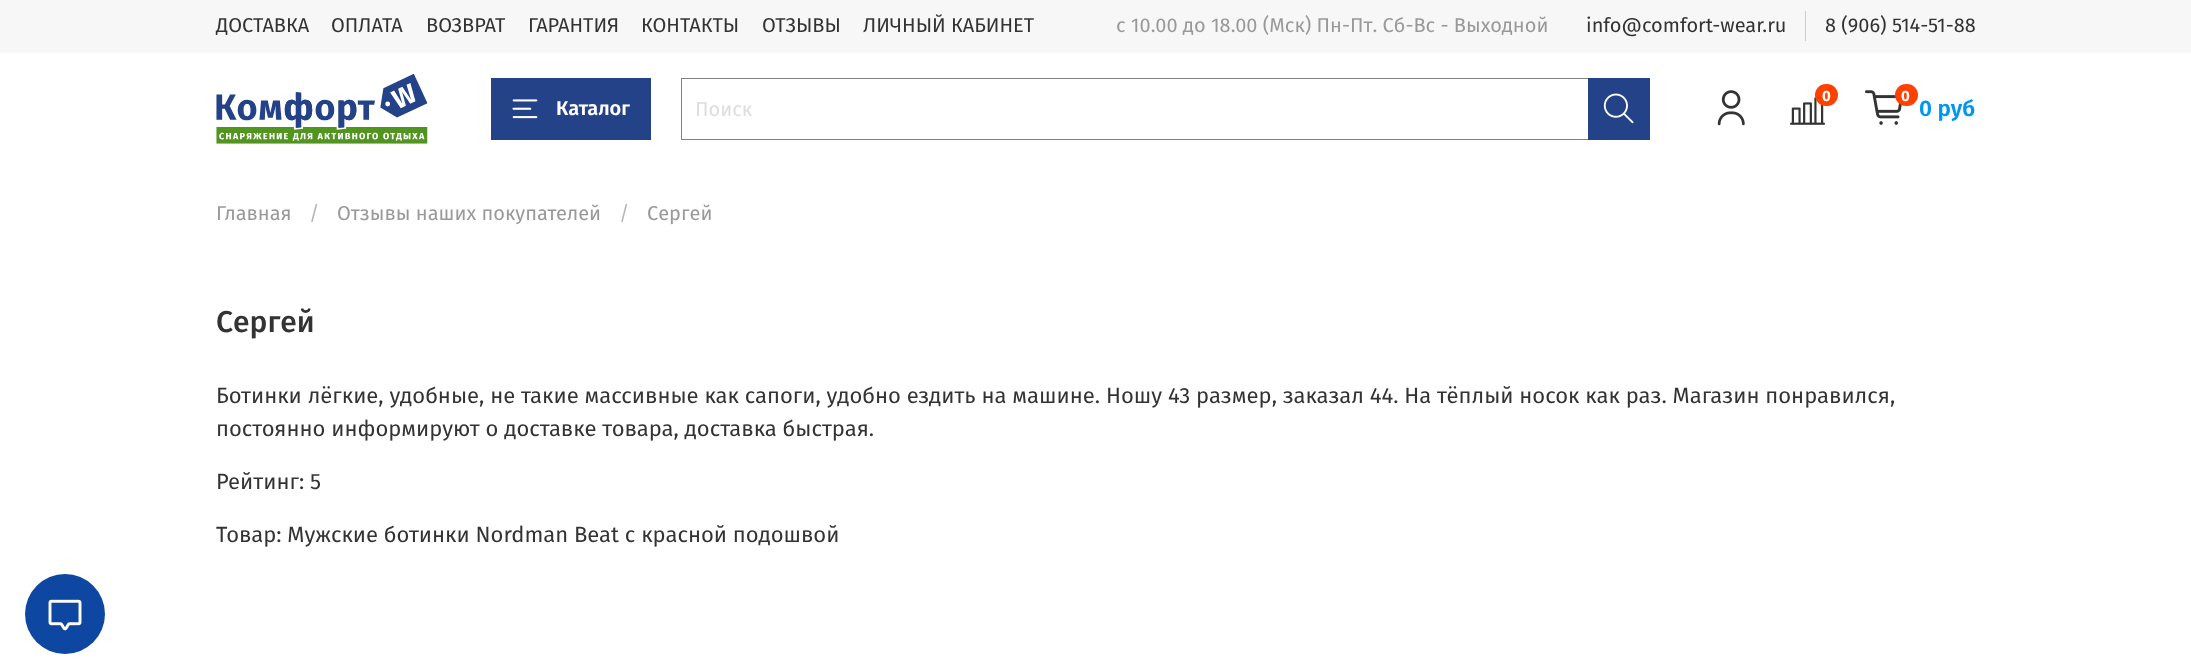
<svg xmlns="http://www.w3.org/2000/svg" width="2191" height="666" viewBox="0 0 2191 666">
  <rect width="100%" height="100%" fill="#fff"/>
  <path d="M0 0h2191v53H0z" fill="#f7f7f7"/>
  <path d="M1805 11h1v30H1805z" fill="#ccc"/>
  <image x="216" y="74" width="212" height="70" href="img/1.png"/>
  <path d="M491 78h160v62H491z" fill="#234287"/>
  <image x="512" y="99" width="26" height="20" href="img/2.png"/>
  <path d="M681 78h907v1H681z" fill="#808080"/>
  <path d="M681 139h907v1H681z" fill="#808080"/>
  <path d="M681 78h1v62H681z" fill="#808080"/>
  <path d="M1588 78h62v62H1588z" fill="#234287"/>
  <image x="1603" y="93" width="31" height="31" href="img/3.png"/>
  <image x="1717" y="90" width="28" height="36" href="img/4.png"/>
  <image x="1790" y="97" width="35" height="28" href="img/5.png"/>
  <rect x="1815" y="84" width="23" height="22" rx="11" fill="#ff4100"/>
  <image x="1865" y="90" width="37" height="35" href="img/6.png"/>
  <rect x="1895" y="84" width="23" height="22" rx="11" fill="#ff4100"/>
  <circle cx="65" cy="614" r="40" fill="#0d47a1"/>
  <image x="48" y="599" width="34" height="32" href="img/7.png"/>
  <g font-family="Fira Sans" font-size="20" fill="#333">
    <text x="216" y="32">ДОСТАВКА</text>
    <text x="331" y="32">ОПЛАТА</text>
    <text x="426" y="32">ВОЗВРАТ</text>
    <text x="528" y="32">ГАРАНТИЯ</text>
    <text x="641" y="32">КОНТАКТЫ</text>
    <text x="762" y="32">ОТЗЫВЫ</text>
    <text x="863" y="32">ЛИЧНЫЙ КАБИНЕТ</text>
  </g>
  <text x="1116" y="32" font-family="Fira Sans" font-size="20" fill="#999">с 10.00 до 18.00 (Мск) Пн-Пт. Cб-Вс - Выходной</text>
  <g font-family="Fira Sans" font-size="20" fill="#333">
    <text x="1586" y="32">info@comfort-wear.ru</text>
    <text x="1825" y="32">8 (906) 514-51-88</text>
  </g>
  <text x="556" y="115" font-family="Fira Sans" font-size="20" font-weight="600" fill="#fff">Каталог</text>
  <text x="695" y="116" font-family="Fira Sans" font-size="20" fill="#ddd">Поиск</text>
  <g font-family="Fira Sans" font-size="15" font-weight="bold" fill="#fff">
    <text x="1822" y="101">0</text>
    <text x="1901" y="101">0</text>
  </g>
  <text x="1919" y="116" font-family="Fira Sans" font-size="22.5" font-weight="600" fill="#0097f1">0 руб</text>
  <text x="216" y="220" font-family="Fira Sans" font-size="20" fill="#999">Главная</text>
  <text x="309" y="220" font-family="Fira Sans" font-size="20" fill="#b8b8b8">/</text>
  <text x="337" y="220" font-family="Fira Sans" font-size="20" fill="#999">Отзывы наших покупателей</text>
  <text x="619" y="220" font-family="Fira Sans" font-size="20" fill="#b8b8b8">/</text>
  <text x="647" y="220" font-family="Fira Sans" font-size="20" fill="#999">Cеpгeй</text>
  <text x="216" y="332" font-family="Fira Sans" font-size="30" font-weight="500" fill="#333">Cеpгeй</text>
  <g font-family="Fira Sans" font-size="22" fill="#333">
    <text x="216" y="403">Ботинки лёгкие, удобные, не такие массивные как сапоги, удобно ездить на машине. Ношу 43 размер, заказал 44. На тёплый носок как раз. Магазин понравился,</text>
    <text x="216" y="436">постоянно информируют о доставке товара, доставка быстрая.</text>
    <text x="216" y="489">Рейтинг: 5</text>
    <text x="216" y="542">Товар: Мужские ботинки Nordman Beat с красной подошвой</text>
  </g>
</svg>
